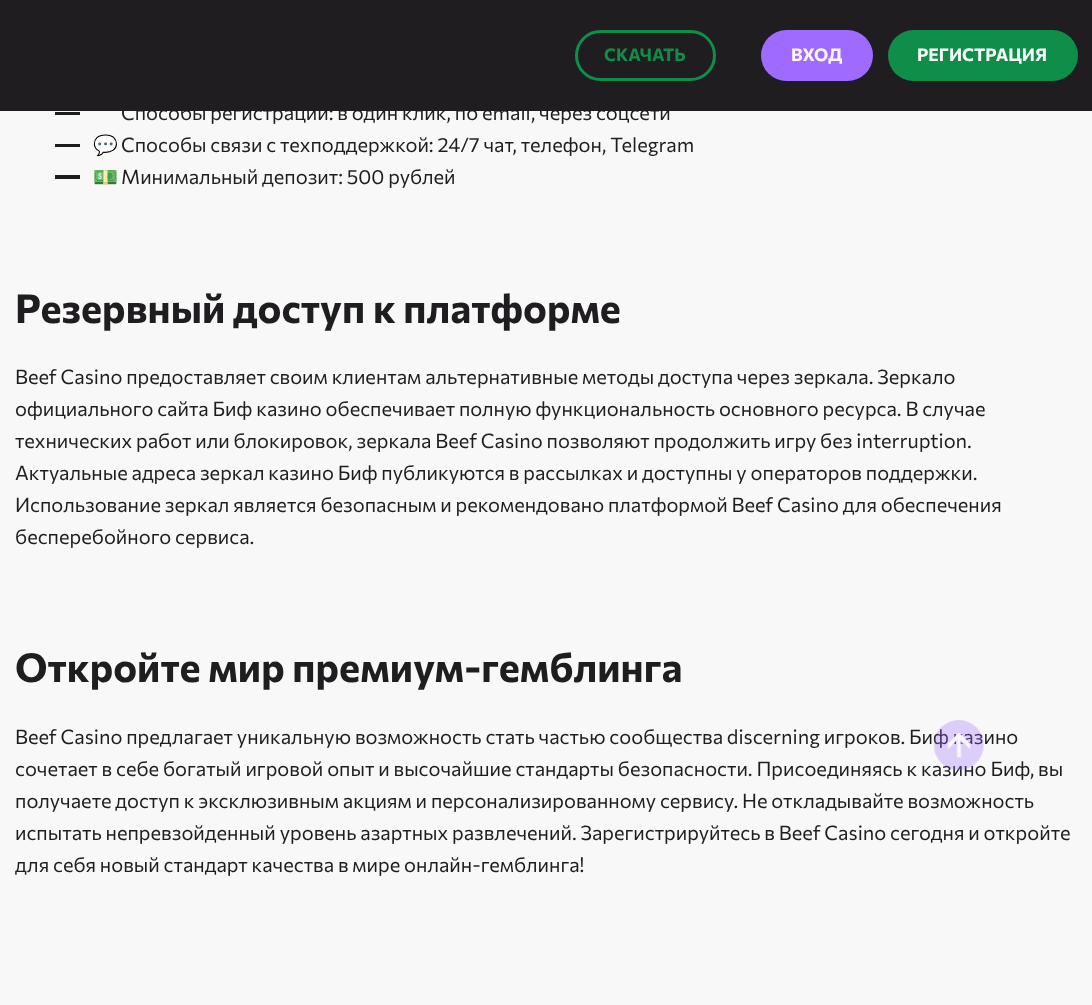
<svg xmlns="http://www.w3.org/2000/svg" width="1092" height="1005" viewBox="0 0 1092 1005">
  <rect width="100%" height="100%" fill="#f8f8f8"/>
  <path d="M0 0h1092v111H0z" fill="#1f1d20"/>
  <rect x="576.5" y="31.5" width="138" height="48" rx="24" fill="none" stroke="#0f8e49" stroke-width="3"/>
  <rect x="761" y="30" width="112" height="51" rx="25.5" fill="#9e6aff"/>
  <rect x="888" y="30" width="190" height="51" rx="25.5" fill="#0f8e49"/>
  <path d="M55 112h25v3H55z" fill="#1f1d20"/>
  <path d="M55 144h25v3H55z" fill="#1f1d20"/>
  <path d="M55 175h25v4H55z" fill="#1f1d20"/>
  <text x="604" y="61" font-family="Commissioner" font-size="17.5" font-weight="100" fill="#0f8e49">СКАЧАТЬ</text>
  <g font-family="Commissioner" font-size="17.5" font-weight="100" fill="#f8f8f8">
    <text x="791" y="61">ВХОД</text>
    <text x="917" y="61">РЕГИСТРАЦИЯ</text>
  </g>
  <text x="121" y="120" font-family="'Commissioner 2'" font-size="20" font-weight="100" fill="#1f1d20">Способы регистрации: в один клик, по email, через соцсети</text>
  <text x="93" y="152" font-family="Noto Color Emoji" font-size="20" fill="#1f1d20">💬</text>
  <text x="121" y="152" font-family="'Commissioner 2'" font-size="20" font-weight="100" fill="#1f1d20">Способы связи с техподдержкой: 24/7 чат, телефон, Telegram</text>
  <text x="93" y="184" font-family="Noto Color Emoji" font-size="20" fill="#1f1d20">💵</text>
  <text x="121" y="184" font-family="'Commissioner 2'" font-size="20" font-weight="100" fill="#1f1d20">Минимальный депозит: 500 рублей</text>
  <text x="15" y="323" font-family="Commissioner" font-size="40" font-weight="100" fill="#1f1d20">Резервный доступ к платформе</text>
  <g font-family="'Commissioner 2'" font-size="20" font-weight="100" fill="#1f1d20">
    <text x="15" y="384">Beef Casino предоставляет своим клиентам альтернативные методы доступа через зеркала. Зеркало</text>
    <text x="15" y="416">официального сайта Биф казино обеспечивает полную функциональность основного ресурса. В случае</text>
    <text x="15" y="448">технических работ или блокировок, зеркала Beef Casino позволяют продолжить игру без interruption.</text>
    <text x="15" y="480">Актуальные адреса зеркал казино Биф публикуются в рассылках и доступны у операторов поддержки.</text>
    <text x="15" y="512">Использование зеркал является безопасным и рекомендовано платформой Beef Casino для обеспечения</text>
    <text x="15" y="544">бесперебойного сервиса.</text>
  </g>
  <text x="15" y="682" font-family="Commissioner" font-size="40" font-weight="100" fill="#1f1d20">Откройте мир премиум-гемблинга</text>
  <g font-family="'Commissioner 2'" font-size="20" font-weight="100" fill="#1f1d20">
    <text x="15" y="744">Beef Casino предлагает уникальную возможность стать частью сообщества discerning игроков. Биф казино</text>
    <text x="15" y="776">сочетает в себе богатый игровой опыт и высочайшие стандарты безопасности. Присоединяясь к казино Биф, вы</text>
    <text x="15" y="808">получаете доступ к эксклюзивным акциям и персонализированному сервису. Не откладывайте возможность</text>
    <text x="15" y="840">испытать непревзойденный уровень азартных развлечений. Зарегистрируйтесь в Beef Casino сегодня и откройте</text>
    <text x="15" y="872">для себя новый стандарт качества в мире онлайн-гемблинга!</text>
  </g>
  <image x="933" y="720" width="51" height="50" href="img/1.png"/>
</svg>
